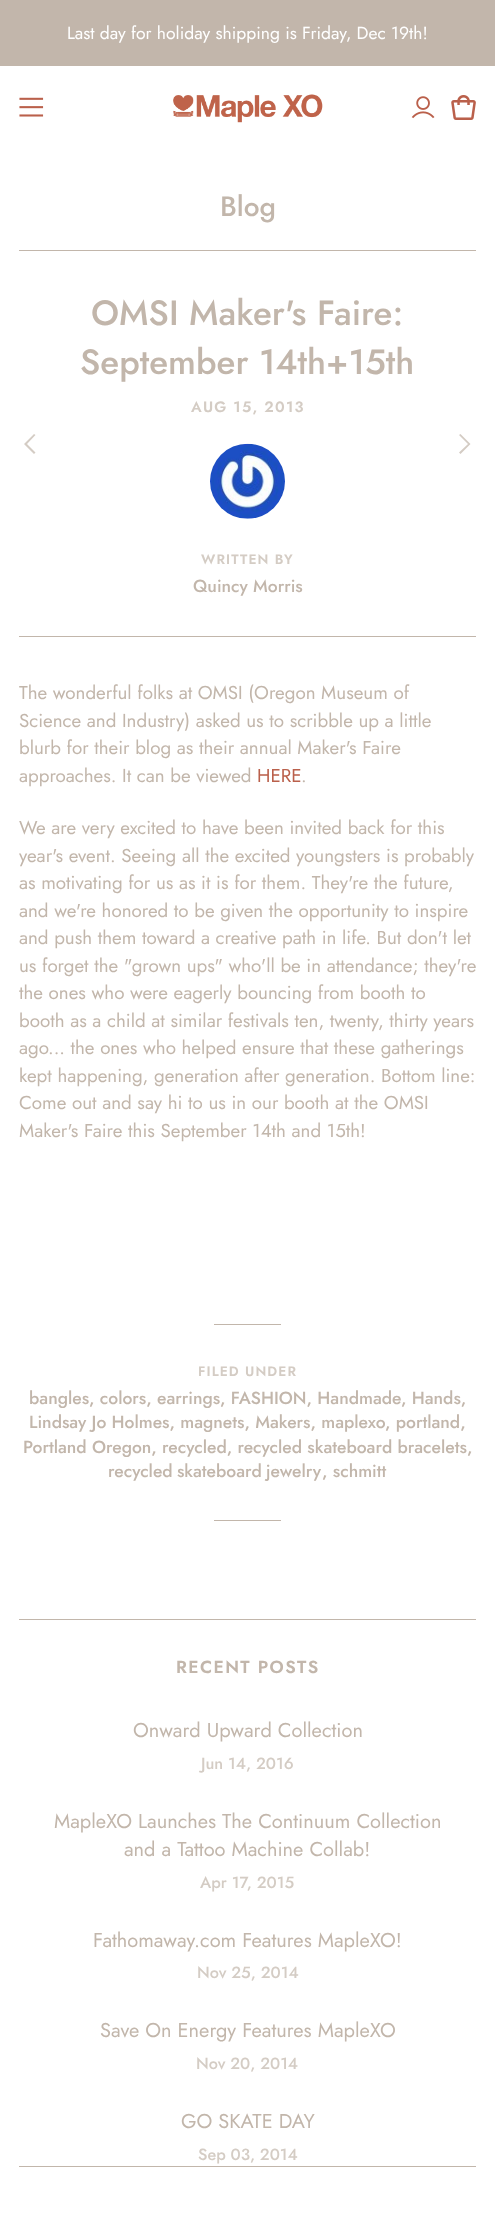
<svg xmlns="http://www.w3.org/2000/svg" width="495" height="2220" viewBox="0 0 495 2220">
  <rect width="100%" height="100%" fill="#fff"/>
  <path d="M0 0h495v66H0z" fill="#c2b6ab"/>
  <image x="173" y="94" width="150" height="29" href="img/1.png"/>
  <image x="19" y="97" width="25" height="20" href="img/2.png"/>
  <image x="411" y="96" width="24" height="23" href="img/3.png"/>
  <image x="451" y="95" width="25" height="25" href="img/4.png"/>
  <path d="M19 250h457v1H19z" fill="#c2b6ab"/>
  <path d="M19 636h457v1H19z" fill="#c2b6ab"/>
  <path d="M27 444L35.5 435L34 434L24 444L34 454L35.5 452.5Z" fill="#d4ccc4" fill-rule="evenodd"/>
  <path d="M468 444L459 435L460.5 434L470.5 444L460.5 454L459 452.5Z" fill="#d4ccc4" fill-rule="evenodd"/>
  <image x="210" y="443" width="75" height="76" href="img/5.png"/>
  <path d="M214 1324h67v1H214z" fill="#c2b6ab"/>
  <path d="M214 1520h67v1H214z" fill="#c2b6ab"/>
  <path d="M19 1619h457v1H19z" fill="#c2b6ab"/>
  <path d="M19 2166h457v1H19z" fill="#c2b6ab"/>
  <text x="67" y="39" font-family="Jost" font-size="17.5" fill="#fff">Last day for holiday shipping is Friday, Dec 19th!</text>
  <text x="220" y="216" font-family="Jost" font-size="28" font-weight="500" fill="#c2b6ab">Blog</text>
  <g font-family="Jost" font-size="35" font-weight="500" fill="#c2b6ab">
    <text x="91" y="325">OMSI Maker's Faire:</text>
    <text x="80" y="374">September 14th+15th</text>
  </g>
  <text x="191" y="412" font-family="Jost" font-size="15" font-weight="600" letter-spacing="1.25" fill="#d4ccc4">AUG 15, 2013</text>
  <text x="201" y="564" font-family="Jost" font-size="13.75" font-weight="600" letter-spacing="1.1" fill="#d4ccc4">WRITTEN BY</text>
  <text x="193" y="592" font-family="Jost" font-size="17.5" font-weight="500" fill="#c2b6ab">Quincy Morris</text>
  <g font-family="Jost" font-size="18.75" fill="#c2b6ab">
    <text x="19" y="699">The wonderful folks at OMSI (Oregon Museum of</text>
    <text x="19" y="727">Science and Industry) asked us to scribble up a little</text>
    <text x="19" y="754">blurb for their blog as their annual Maker's Faire</text>
    <text x="19" y="782">approaches. It can be viewed</text>
  </g>
  <text x="257" y="782" font-family="Jost" font-size="18.75" fill="#ba604b">HERE</text>
  <g font-family="Jost" font-size="18.75" fill="#c2b6ab">
    <text x="301" y="782">.</text>
    <text x="19" y="834">We are very excited to have been invited back for this</text>
    <text x="19" y="862">year's event. Seeing all the excited youngsters is probably</text>
    <text x="19" y="889">as motivating for us as it is for them. They're the future,</text>
    <text x="19" y="917">and we're honored to be given the opportunity to inspire</text>
    <text x="19" y="944">and push them toward a creative path in life. But don't let</text>
    <text x="19" y="972">us forget the "grown ups" who'll be in attendance; they're</text>
    <text x="19" y="999">the ones who were eagerly bouncing from booth to</text>
    <text x="19" y="1027">booth as a child at similar festivals ten, twenty, thirty years</text>
    <text x="19" y="1054">ago... the ones who helped ensure that these gatherings</text>
    <text x="19" y="1082">kept happening, generation after generation. Bottom line:</text>
    <text x="19" y="1109">Come out and say hi to us in our booth at the OMSI</text>
    <text x="19" y="1137">Maker's Faire this September 14th and 15th!</text>
  </g>
  <text x="198" y="1376" font-family="Jost" font-size="13.75" font-weight="600" letter-spacing="1.1" fill="#d4ccc4">FILED UNDER</text>
  <g font-family="Jost" font-size="17.5" font-weight="500" fill="#c2b6ab">
    <text x="29" y="1404">bangles, colors, earrings, FASHION, Handmade</text>
    <text x="401" y="1404">, Hands,</text>
    <text x="29" y="1428">Lindsay Jo Holmes, magnets, Makers, maplexo</text>
    <text x="385" y="1428">, portland,</text>
    <text x="23" y="1453">Portland Oregon, recycled, recycled skateboard bracelets,</text>
    <text x="108" y="1477" word-spacing="-1">recycled skateboard jewelry</text>
    <text x="322" y="1477">, schmitt</text>
  </g>
  <text x="176" y="1673" font-family="Jost" font-size="17.5" font-weight="600" letter-spacing="1.4" fill="#c2b6ab">RECENT POSTS</text>
  <text x="133" y="1737" font-family="Jost" font-size="20" fill="#c2b6ab">Onward Upward Collection</text>
  <text x="201" y="1769" font-family="Jost" font-size="16.25" font-weight="500" fill="#d4ccc4">Jun 14, 2016</text>
  <g font-family="Jost" font-size="20" fill="#c2b6ab">
    <text x="54" y="1828">MapleXO Launches The Continuum Collection</text>
    <text x="124" y="1856">and a Tattoo Machine Collab!</text>
  </g>
  <text x="200" y="1888" font-family="Jost" font-size="16.25" font-weight="500" fill="#d4ccc4">Apr 17, 2015</text>
  <text x="93" y="1947" font-family="Jost" font-size="20" fill="#c2b6ab">Fathomaway.com Features MapleXO!</text>
  <text x="197" y="1978" font-family="Jost" font-size="16.25" font-weight="500" fill="#d4ccc4">Nov 25, 2014</text>
  <text x="100" y="2037" font-family="Jost" font-size="20" fill="#c2b6ab">Save On Energy Features MapleXO</text>
  <text x="196" y="2069" font-family="Jost" font-size="16.25" font-weight="500" fill="#d4ccc4">Nov 20, 2014</text>
  <text x="181" y="2128" font-family="Jost" font-size="20" fill="#c2b6ab">GO SKATE DAY</text>
  <text x="198" y="2160" font-family="Jost" font-size="16.25" font-weight="500" fill="#d4ccc4">Sep 03, 2014</text>
</svg>
